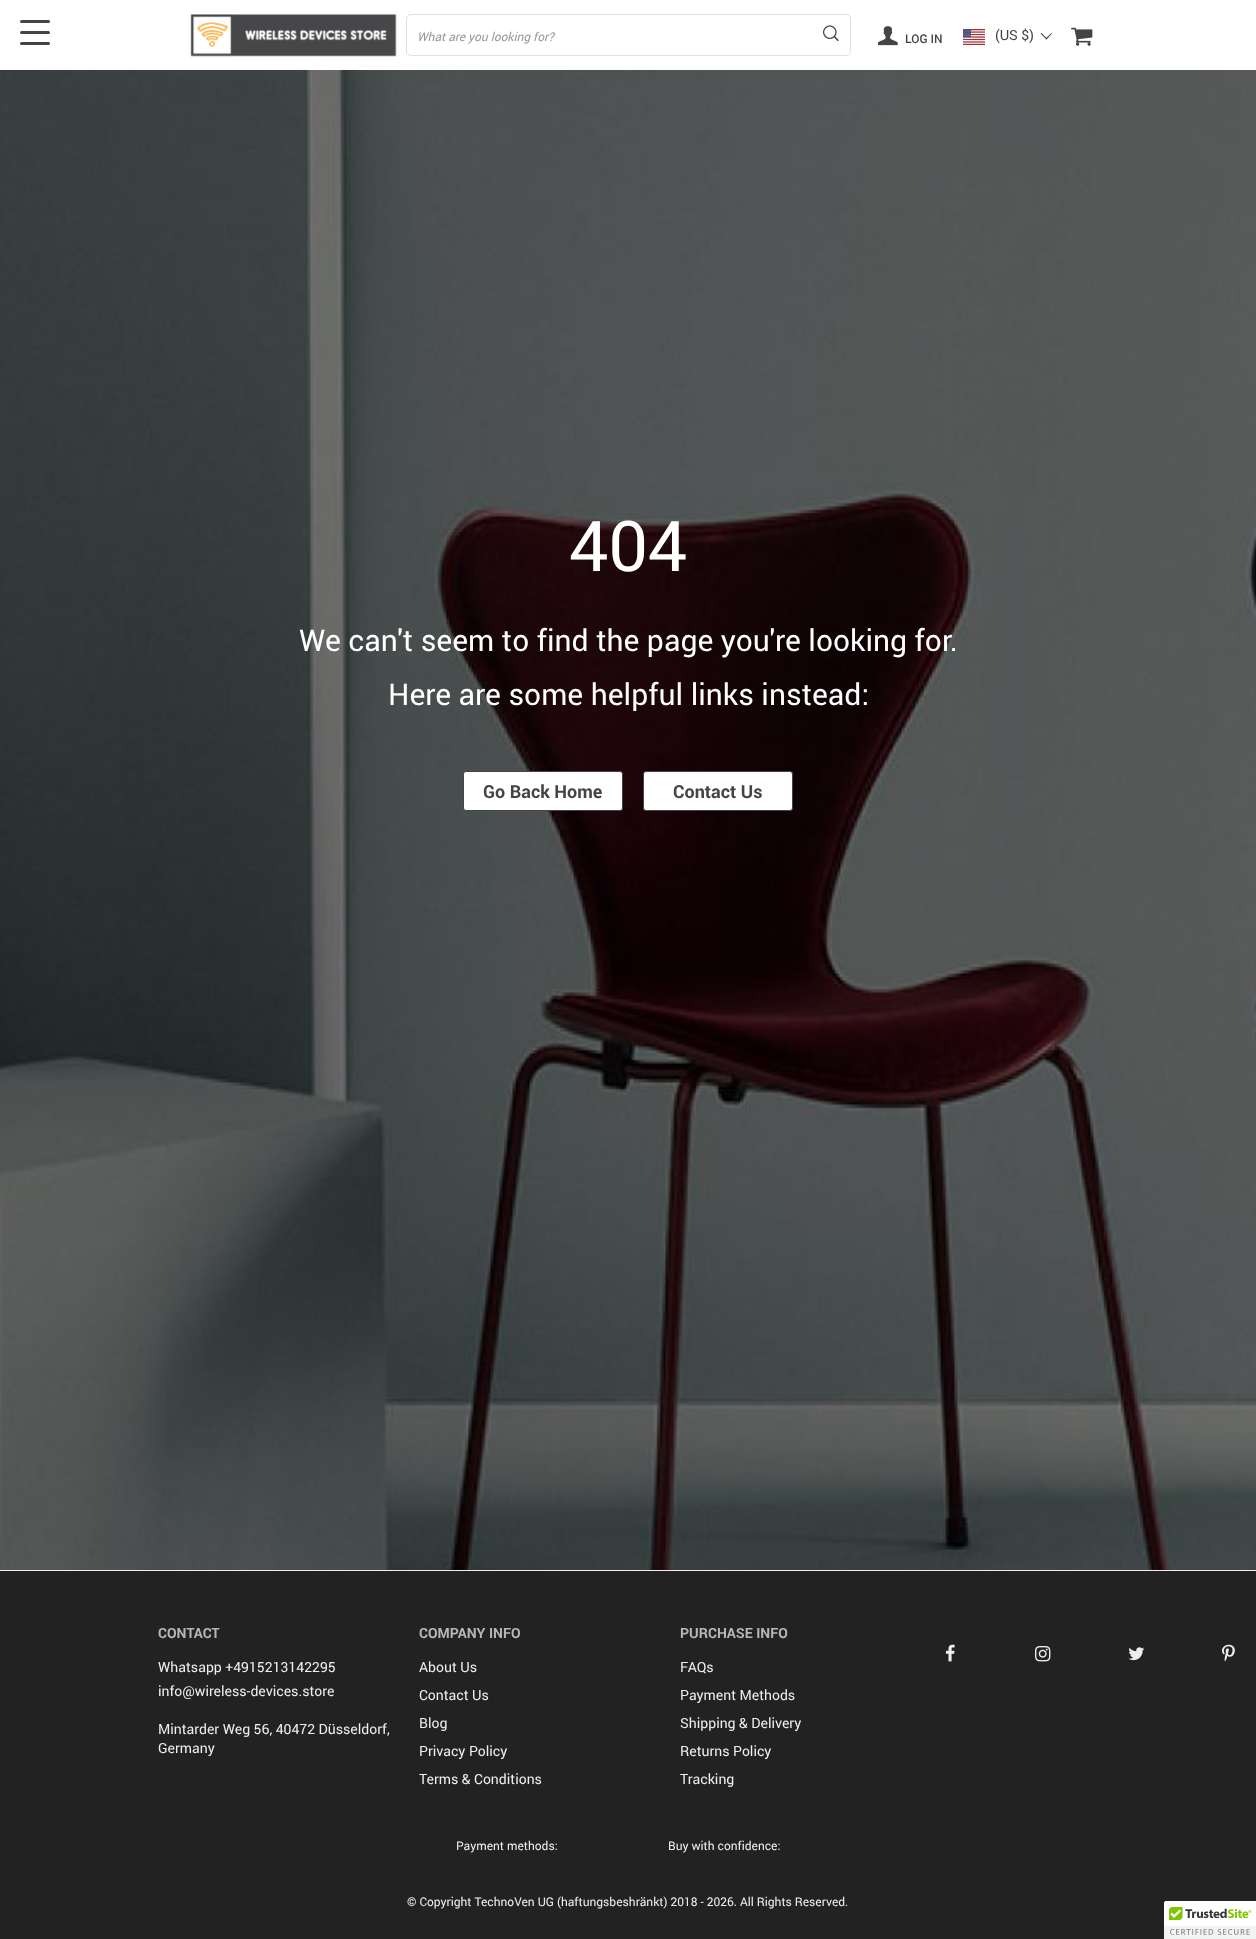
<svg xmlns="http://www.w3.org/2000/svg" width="1256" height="1939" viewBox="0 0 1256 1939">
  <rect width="100%" height="100%" fill="#222"/>
  <path d="M0 0h1256v70H0z" fill="#fff"/>
  <rect x="20" y="20" width="30" height="3" rx="1.5" fill="#444"/>
  <rect x="20" y="31" width="30" height="3" rx="1.5" fill="#444"/>
  <rect x="20" y="42" width="30" height="3" rx="1.5" fill="#444"/>
  <image x="190" y="14" width="207" height="43" href="img/1.png"/>
  <rect x="406.5" y="14.5" width="444" height="41" rx="4.5" fill="none" stroke="#dfdfdf"/>
  <image x="823" y="25" width="16" height="16" href="img/2.png"/>
  <image x="878" y="26" width="20" height="20" href="img/3.png"/>
  <image x="963" y="29" width="22" height="16" href="img/4.png"/>
  <path d="M1052 33.5L1046.5 39.5L1045.5 38.5L1051.5 33Z" fill="#444"/>
  <path d="M1047 38.5L1046.5 39.5L1040.5 33.5L1041.5 33Z" fill="#444"/>
  <image x="1071" y="27" width="22" height="19" href="img/5.png"/>
  <image x="0" y="70" width="1256" height="1500" href="img/6.png"/>
  <rect x="463.5" y="771.5" width="159" height="39" rx="2.5" fill="#fff" stroke="#444"/>
  <rect x="643.5" y="771.5" width="149" height="39" rx="2.5" fill="#fff" stroke="#444"/>
  <path d="M0 1570h1256v1H0z" fill="#eee"/>
  <image x="945" y="1644" width="10" height="18" href="img/7.png"/>
  <image x="1035" y="1646" width="16" height="16" href="img/8.png"/>
  <image x="1128" y="1647" width="17" height="14" href="img/9.png"/>
  <image x="1222" y="1644" width="13" height="18" href="img/10.png"/>
  <path d="M1166 1901H1256V1939H1164V1903C1164 1902 1165 1901 1166 1901Z" fill="#fff"/>
  <image x="1164" y="1901" width="92" height="38" href="img/11.png"/>
  <text x="417" y="41" font-family="Roboto" font-size="12" font-style="italic" fill="#999">What are you looking for?</text>
  <text x="905" y="43" font-family="Roboto" font-size="12" font-weight="500" fill="#444">LOG IN</text>
  <text x="995" y="40" font-family="Roboto" font-size="14" fill="#444">(US $)</text>
  <text x="569" y="571" font-family="Roboto" font-size="70" fill="#fff">404</text>
  <g font-family="Roboto" font-size="30" fill="#fff">
    <text x="299" y="651">We can't seem to find the page you're looking for.</text>
    <text x="388" y="705">Here are some helpful links instead:</text>
  </g>
  <g font-family="Roboto" font-size="18" font-weight="bold" fill="#444">
    <text x="483" y="798">Go Back Home</text>
    <text x="673" y="798">Contact Us</text>
  </g>
  <text x="158" y="1638" font-family="Roboto" font-size="14" font-weight="bold" fill="#b7b7b7">CONTACT</text>
  <g font-family="Roboto" font-size="14" fill="#eee">
    <text x="158" y="1672">Whatsapp +4915213142295</text>
    <text x="158" y="1696">info@wireless-devices.store</text>
    <text x="158" y="1734">Mintarder Weg 56, 40472 Düsseldorf,</text>
    <text x="158" y="1753">Germany</text>
  </g>
  <text x="419" y="1638" font-family="Roboto" font-size="14" font-weight="bold" fill="#b7b7b7">COMPANY INFO</text>
  <g font-family="Roboto" font-size="14" fill="#eee">
    <text x="419" y="1672">About Us</text>
    <text x="419" y="1700">Contact Us</text>
    <text x="419" y="1728">Blog</text>
    <text x="419" y="1756">Privacy Policy</text>
    <text x="419" y="1784">Terms &amp; Conditions</text>
  </g>
  <text x="680" y="1638" font-family="Roboto" font-size="14" font-weight="bold" fill="#b7b7b7">PURCHASE INFO</text>
  <g font-family="Roboto" font-size="14" fill="#eee">
    <text x="680" y="1672">FAQs</text>
    <text x="680" y="1700">Payment Methods</text>
    <text x="680" y="1728">Shipping &amp; Delivery</text>
    <text x="680" y="1756">Returns Policy</text>
    <text x="680" y="1784">Tracking</text>
  </g>
  <g font-family="Roboto" font-size="12" fill="#eee">
    <text x="456" y="1850">Payment methods:</text>
    <text x="668" y="1850">Buy with confidence:</text>
    <text x="407" y="1906">© Copyright TechnoVen UG (haftungsbeshränkt) 2018 - 2026. All Rights Reserved.</text>
  </g>
</svg>
